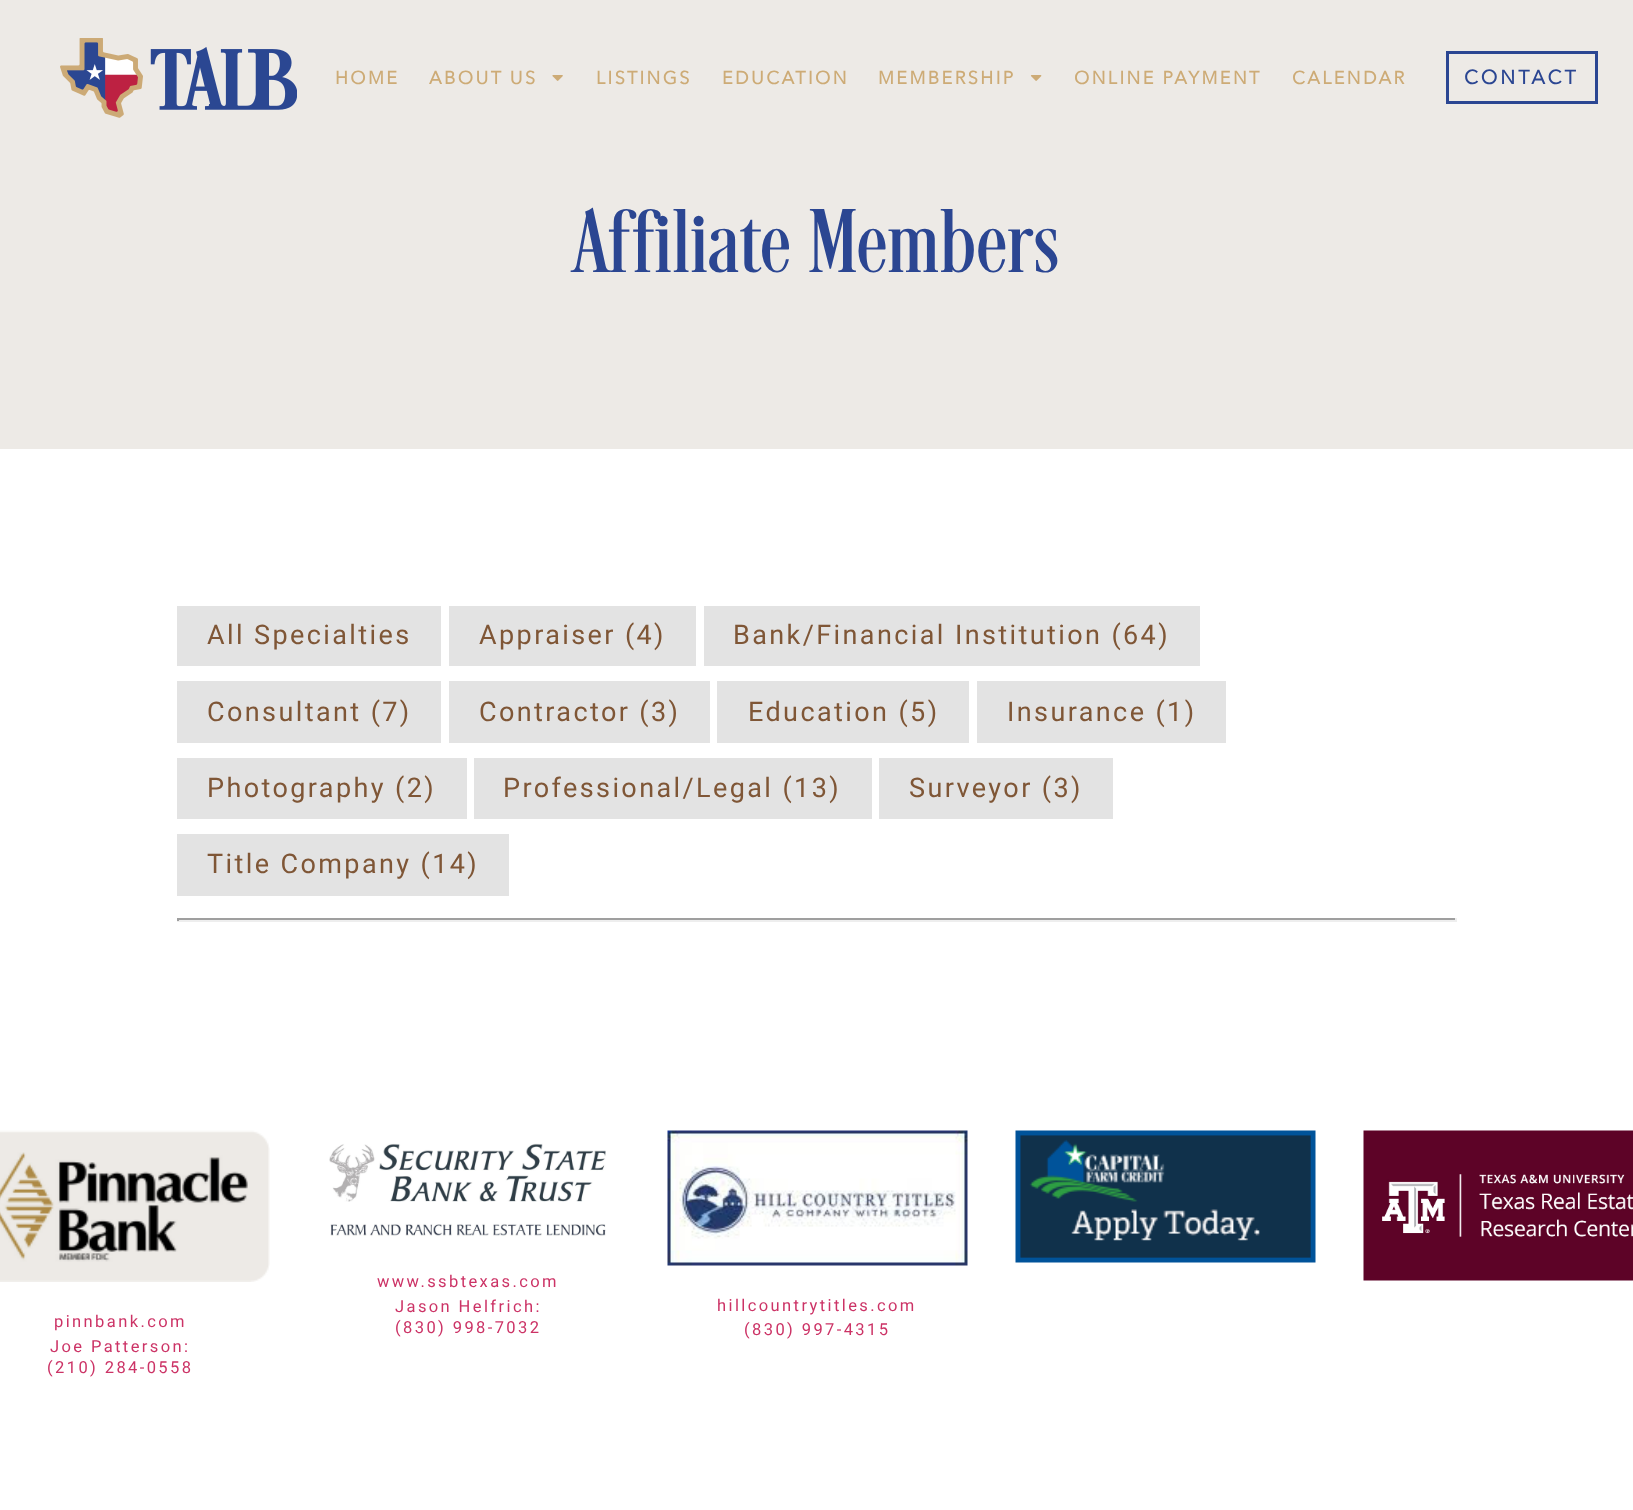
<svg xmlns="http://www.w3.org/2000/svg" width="1633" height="1510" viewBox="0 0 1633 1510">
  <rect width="100%" height="100%" fill="#fff"/>
  <path d="M0 0h1633v449H0z" fill="#edeae6"/>
  <image x="60" y="38" width="237" height="80" href="img/1.png"/>
  <image x="552" y="75" width="11" height="6" href="img/2.png"/>
  <image x="1030" y="75" width="12" height="6" href="img/3.png"/>
  <path d="M1447.5 52.5h149v50H1447.5z" fill="none" stroke="#2b4692" stroke-width="3"/>
  <path d="M177 606h264v60H177z" fill="#e3e3e3"/>
  <path d="M449 606h247v60H449z" fill="#e3e3e3"/>
  <path d="M704 606h496v60H704z" fill="#e3e3e3"/>
  <path d="M177 681h264v62H177z" fill="#e3e3e3"/>
  <path d="M449 681h261v62H449z" fill="#e3e3e3"/>
  <path d="M717 681h252v62H717z" fill="#e3e3e3"/>
  <path d="M977 681h249v62H977z" fill="#e3e3e3"/>
  <path d="M177 758h290v61H177z" fill="#e3e3e3"/>
  <path d="M474 758h398v61H474z" fill="#e3e3e3"/>
  <path d="M879 758h234v61H879z" fill="#e3e3e3"/>
  <path d="M177 834h332v62H177z" fill="#e3e3e3"/>
  <path d="M177 918h1280v2H177z" fill="#9f9f9f"/>
  <path d="M1455 918h2v3H1455z" fill="#eee"/>
  <path d="M177 920h1280v2H177z" fill="#eee"/>
  <path d="M177 918h2v3H177z" fill="#9f9f9f"/>
  <image x="1015" y="1130" width="301" height="133" href="img/4.png"/>
  <image x="1363" y="1130" width="270" height="151" href="img/5.png"/>
  <image x="0" y="1130" width="270" height="152" href="img/6.png"/>
  <image x="329" y="1143" width="277" height="94" href="img/7.png"/>
  <image x="667" y="1130" width="301" height="136" href="img/8.png"/>
  <g font-family="Avenir Next" font-size="18" font-weight="bold" letter-spacing="2.4" fill="#cdab76">
    <text x="335" y="84">HOME</text>
    <text x="429" y="84">ABOUT US</text>
    <text x="596" y="84">LISTINGS</text>
    <text x="722" y="84">EDUCATION</text>
    <text x="878" y="84">MEMBERSHIP</text>
    <text x="1074" y="84">ONLINE PAYMENT</text>
    <text x="1292" y="84">CALENDAR</text>
  </g>
  <text x="1464" y="84" font-family="Avenir Next" font-size="19.5" font-weight="bold" letter-spacing="3" fill="#2b4692">CONTACT</text>
  <text x="574" y="272" font-family="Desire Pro" font-size="93" letter-spacing="2.4" fill="#2b4692">Affiliate Members</text>
  <g font-family="Roboto" font-size="27" letter-spacing="2.4" fill="#7f5636">
    <text x="207" y="644">All Specialties</text>
    <text x="479" y="644">Appraiser (4)</text>
    <text x="733" y="644">Bank/Financial Institution (64)</text>
    <text x="207" y="721">Consultant (7)</text>
    <text x="479" y="721">Contractor (3)</text>
    <text x="748" y="721">Education (5)</text>
    <text x="1007" y="721">Insurance (1)</text>
    <text x="207" y="797">Photography (2)</text>
    <text x="503" y="797">Professional/Legal (13)</text>
    <text x="909" y="797">Surveyor (3)</text>
    <text x="207" y="873">Title Company (14)</text>
  </g>
  <g font-family="Roboto" font-size="16.5" letter-spacing="2.4" fill="#c36">
    <text x="54" y="1327">pinnbank.com</text>
    <text x="50" y="1352">Joe Patterson:</text>
    <text x="47" y="1373">(210) 284-0558</text>
    <text x="377" y="1287">www.ssbtexas.com</text>
    <text x="395" y="1312">Jason Helfrich:</text>
    <text x="395" y="1333">(830) 998-7032</text>
    <text x="717" y="1311">hillcountrytitles.com</text>
    <text x="744" y="1335">(830) 997-4315</text>
  </g>
</svg>
